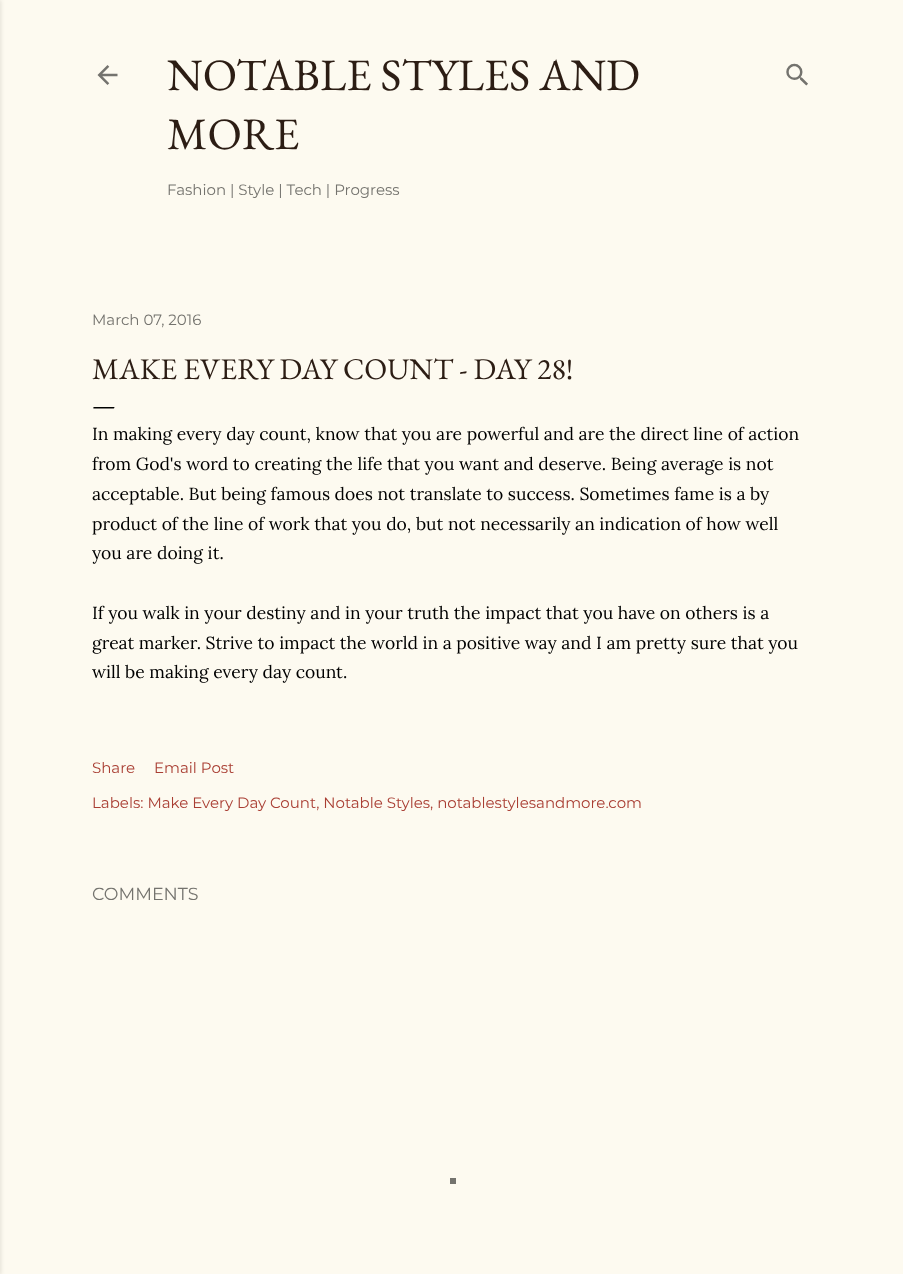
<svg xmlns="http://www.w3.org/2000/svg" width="903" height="1274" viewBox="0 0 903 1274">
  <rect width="100%" height="100%" fill="#fdfaf0"/>
  <path d="M-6 0h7v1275H-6z" fill="#0000001a" filter="blur(2px)"/>
  <image x="97" y="65" width="21" height="20" href="img/1.png"/>
  <image x="786" y="63" width="22" height="23" href="img/2.png"/>
  <path d="M450 1178h6v6H450z" fill="#74736e"/>
  <g font-family="EB Garamond" font-size="45" fill="#2c1d14">
    <text x="167" y="90">NOTABLE STYLES AND</text>
    <text x="167" y="149">MORE</text>
  </g>
  <g font-family="Montserrat" font-size="15" font-weight="100" fill="#74736e">
    <text x="167" y="195">Fashion | Style | Tech | Progress</text>
    <text x="92" y="325">March 07, 2016</text>
  </g>
  <text x="92" y="379" font-family="EB Garamond" font-size="30" fill="#2c1d14">MAKE EVERY DAY COUNT - DAY 28!</text>
  <text x="92" y="413" font-family="EB Garamond" font-size="25" fill="#000">—</text>
  <g font-family="Lora" font-size="17.5" fill="#000">
    <text x="92" y="440">In making every day count, know that you are powerful and are the direct line of action</text>
    <text x="92" y="470">from God's word to creating the life that you want and deserve. Being average is not</text>
    <text x="92" y="500">acceptable. But being famous does not translate to success. Sometimes fame is a by</text>
    <text x="92" y="530">product of the line of work that you do, but not necessarily an indication of how well</text>
    <text x="92" y="559">you are doing it.</text>
    <text x="92" y="619">If you walk in your destiny and in your truth the impact that you have on others is a</text>
    <text x="92" y="649">great marker. Strive to impact the world in a positive way and I am pretty sure that you</text>
    <text x="92" y="678">will be making every day count.</text>
  </g>
  <g font-family="Montserrat" font-size="15" font-weight="100" fill="#a93e33">
    <text x="92" y="773">Share</text>
    <text x="154" y="773">Email Post</text>
    <text x="92" y="808">Labels: Make Every Day Count, Notable Styles, notablestylesandmore.com</text>
  </g>
  <text x="92" y="900" font-family="Montserrat" font-size="17.5" font-weight="100" fill="#74736e">COMMENTS</text>
</svg>
